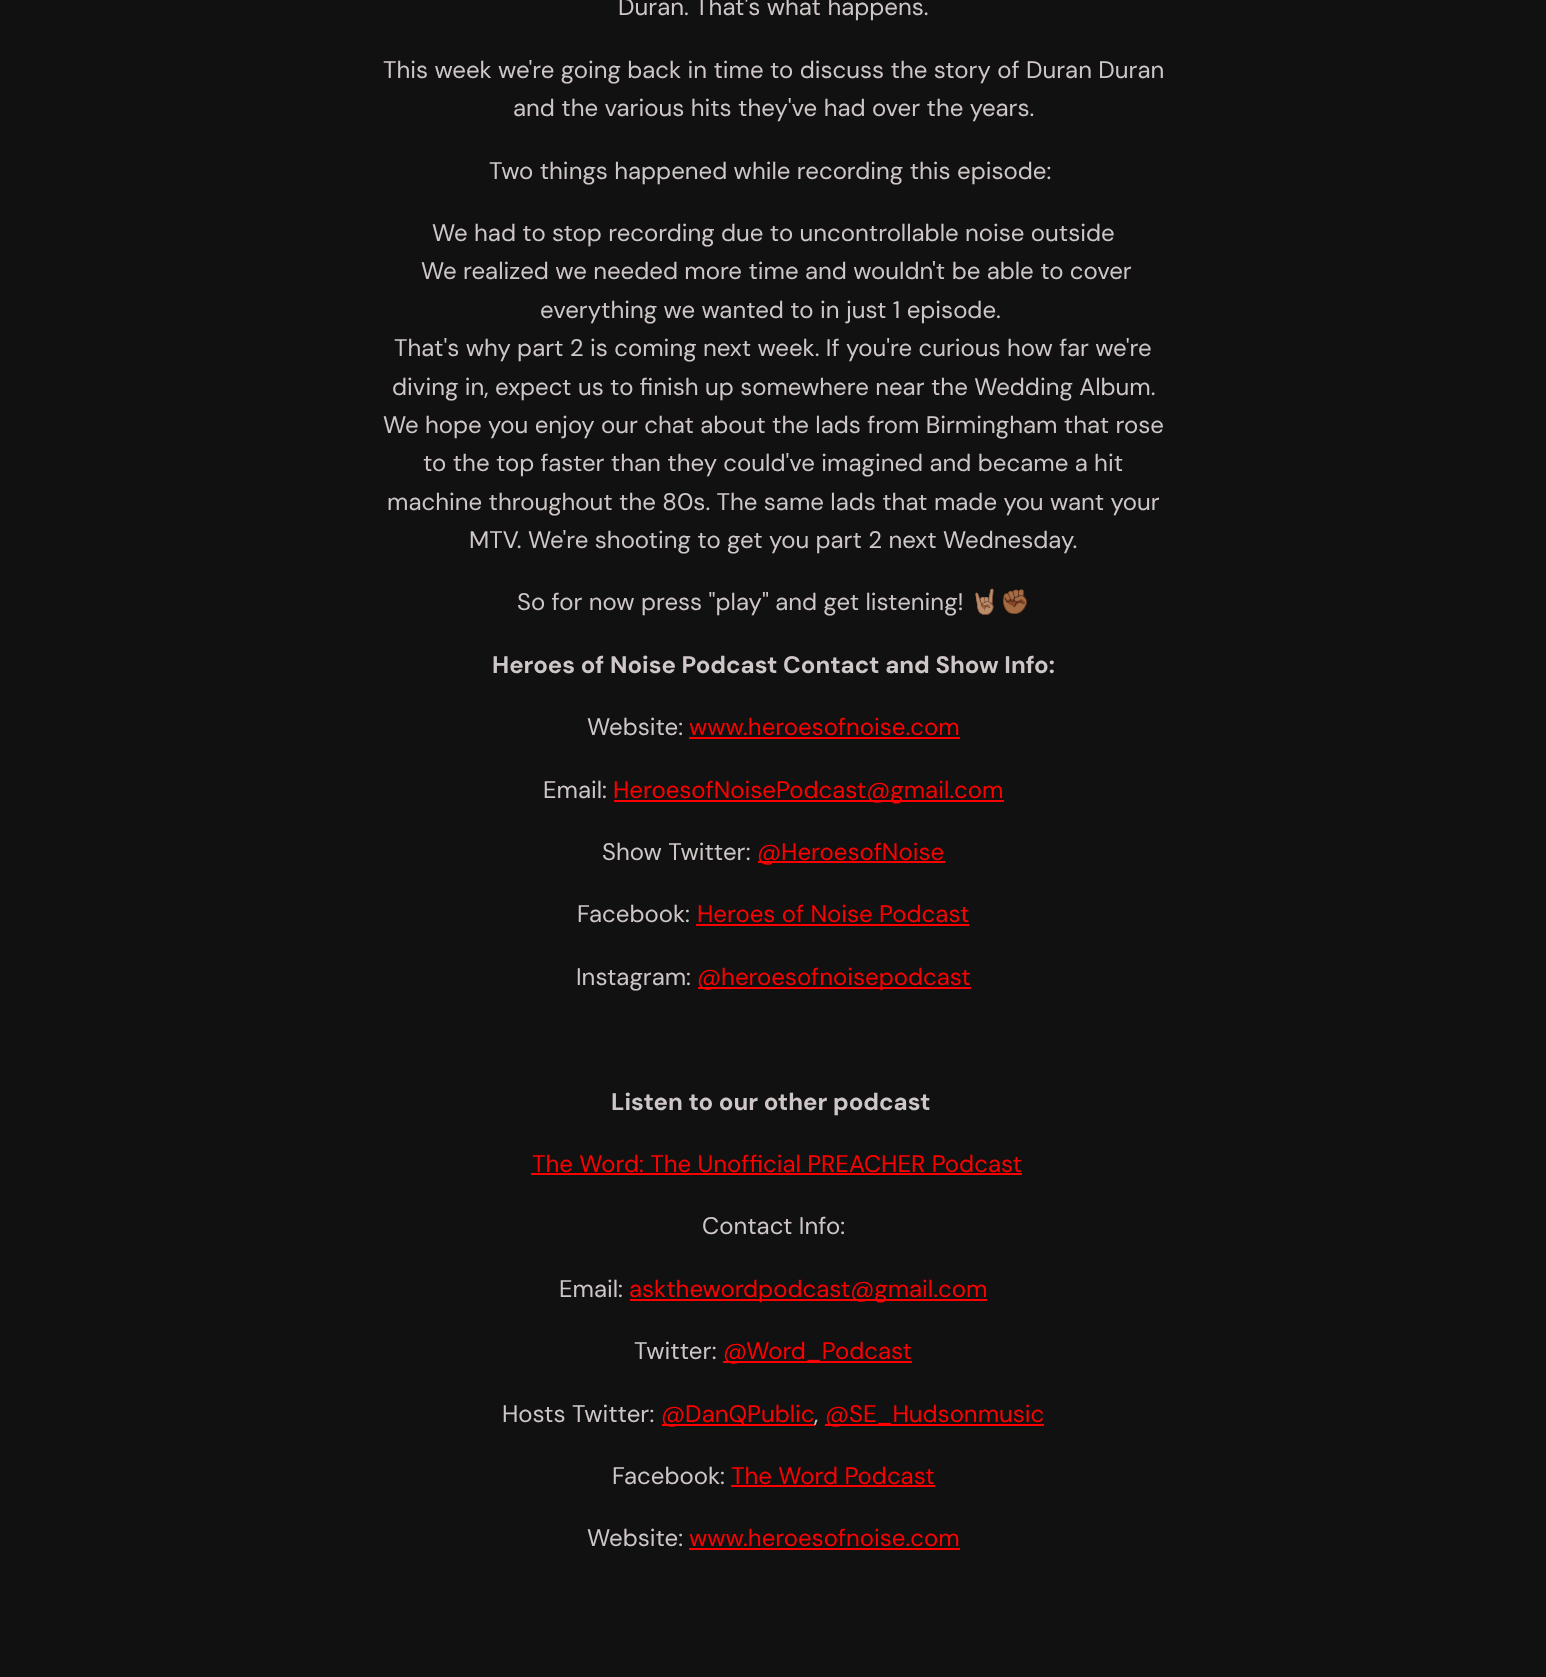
<svg xmlns="http://www.w3.org/2000/svg" width="1546" height="1677" viewBox="0 0 1546 1677">
  <rect width="100%" height="100%" fill="#111"/>
  <path d="M689 737h271v2H689z" fill="#f00"/>
  <path d="M614 800h390v2H614z" fill="#f00"/>
  <path d="M758 861h187v2H758z" fill="#f00"/>
  <path d="M696 924h273v2H696z" fill="#f00"/>
  <path d="M698 987h273v2H698z" fill="#f00"/>
  <path d="M531 1173h491v2H531z" fill="#f00"/>
  <path d="M630 1299h357v2H630z" fill="#f00"/>
  <path d="M723 1361h189v2H723z" fill="#f00"/>
  <path d="M662 1424h153v2H662z" fill="#f00"/>
  <path d="M825 1424h219v2H825z" fill="#f00"/>
  <path d="M731 1485h204v2H731z" fill="#f00"/>
  <path d="M689 1548h271v2H689z" fill="#f00"/>
  <g font-family="DM Sans" font-size="24" fill="#cfc7c7">
    <text x="618" y="15">Duran. That's what happens.</text>
    <text x="383" y="78">This week we're going back in time to discuss the story of Duran Duran</text>
    <text x="513" y="116">and the various hits they've had over the years.</text>
    <text x="489" y="179">Two things happened while recording this episode:</text>
    <text x="432" y="241">We had to stop recording due to uncontrollable noise outside</text>
    <text x="421" y="279">We realized we needed more time and wouldn't be able to cover</text>
    <text x="540" y="318">everything we wanted to in just 1 episode.</text>
    <text x="394" y="356">That's why part 2 is coming next week. If you're curious how far we're</text>
    <text x="392" y="395">diving in, expect us to finish up somewhere near the Wedding Album.</text>
    <text x="383" y="433">We hope you enjoy our chat about the lads from Birmingham that rose</text>
    <text x="423" y="471">to the top faster than they could've imagined and became a hit</text>
    <text x="387" y="510">machine throughout the 80s. The same lads that made you want your</text>
    <text x="469" y="548">MTV. We're shooting to get you part 2 next Wednesday.</text>
    <text x="517" y="610">So for now press "play" and get listening!</text>
  </g>
  <text x="970" y="610" font-family="Noto Color Emoji" font-size="24" fill="#cfc7c7">🤘🏽✊🏾</text>
  <text x="492" y="673" font-family="DM Sans" font-size="24" font-weight="bold" fill="#cfc7c7">Heroes of Noise Podcast Contact and Show Info:</text>
  <text x="587" y="735" font-family="DM Sans" font-size="24" fill="#cfc7c7">Website:</text>
  <text x="689" y="735" font-family="DM Sans" font-size="24" fill="#f00">www.heroesofnoise.com</text>
  <text x="543" y="798" font-family="DM Sans" font-size="24" fill="#cfc7c7">Email:</text>
  <text x="613" y="798" font-family="DM Sans" font-size="24" fill="#f00">HeroesofNoisePodcast@gmail.com</text>
  <text x="602" y="860" font-family="DM Sans" font-size="24" fill="#cfc7c7">Show Twitter:</text>
  <text x="757" y="860" font-family="DM Sans" font-size="24" fill="#f00">@HeroesofNoise</text>
  <text x="577" y="922" font-family="DM Sans" font-size="24" fill="#cfc7c7">Facebook:</text>
  <text x="697" y="922" font-family="DM Sans" font-size="24" fill="#f00">Heroes of Noise Podcast</text>
  <text x="576" y="985" font-family="DM Sans" font-size="24" fill="#cfc7c7">Instagram:</text>
  <text x="697" y="985" font-family="DM Sans" font-size="24" fill="#f00">@heroesofnoisepodcast</text>
  <text x="611" y="1110" font-family="DM Sans" font-size="24" font-weight="bold" fill="#cfc7c7">Listen to our other podcast</text>
  <text x="532" y="1172" font-family="DM Sans" font-size="24" fill="#f00">The Word: The Unofficial PREACHER Podcast</text>
  <g font-family="DM Sans" font-size="24" fill="#cfc7c7">
    <text x="702" y="1234">Contact Info:</text>
    <text x="559" y="1297">Email:</text>
  </g>
  <text x="629" y="1297" font-family="DM Sans" font-size="24" fill="#f00">askthewordpodcast@gmail.com</text>
  <text x="634" y="1359" font-family="DM Sans" font-size="24" fill="#cfc7c7">Twitter:</text>
  <text x="723" y="1359" font-family="DM Sans" font-size="24" fill="#f00">@Word_Podcast</text>
  <text x="502" y="1422" font-family="DM Sans" font-size="24" fill="#cfc7c7">Hosts Twitter:</text>
  <text x="661" y="1422" font-family="DM Sans" font-size="24" fill="#f00">@DanQPublic</text>
  <text x="814" y="1422" font-family="DM Sans" font-size="24" fill="#cfc7c7">,</text>
  <text x="825" y="1422" font-family="DM Sans" font-size="24" fill="#f00">@SE_Hudsonmusic</text>
  <text x="612" y="1484" font-family="DM Sans" font-size="24" fill="#cfc7c7">Facebook:</text>
  <text x="731" y="1484" font-family="DM Sans" font-size="24" fill="#f00">The Word Podcast</text>
  <text x="587" y="1546" font-family="DM Sans" font-size="24" fill="#cfc7c7">Website:</text>
  <text x="689" y="1546" font-family="DM Sans" font-size="24" fill="#f00">www.heroesofnoise.com</text>
</svg>
